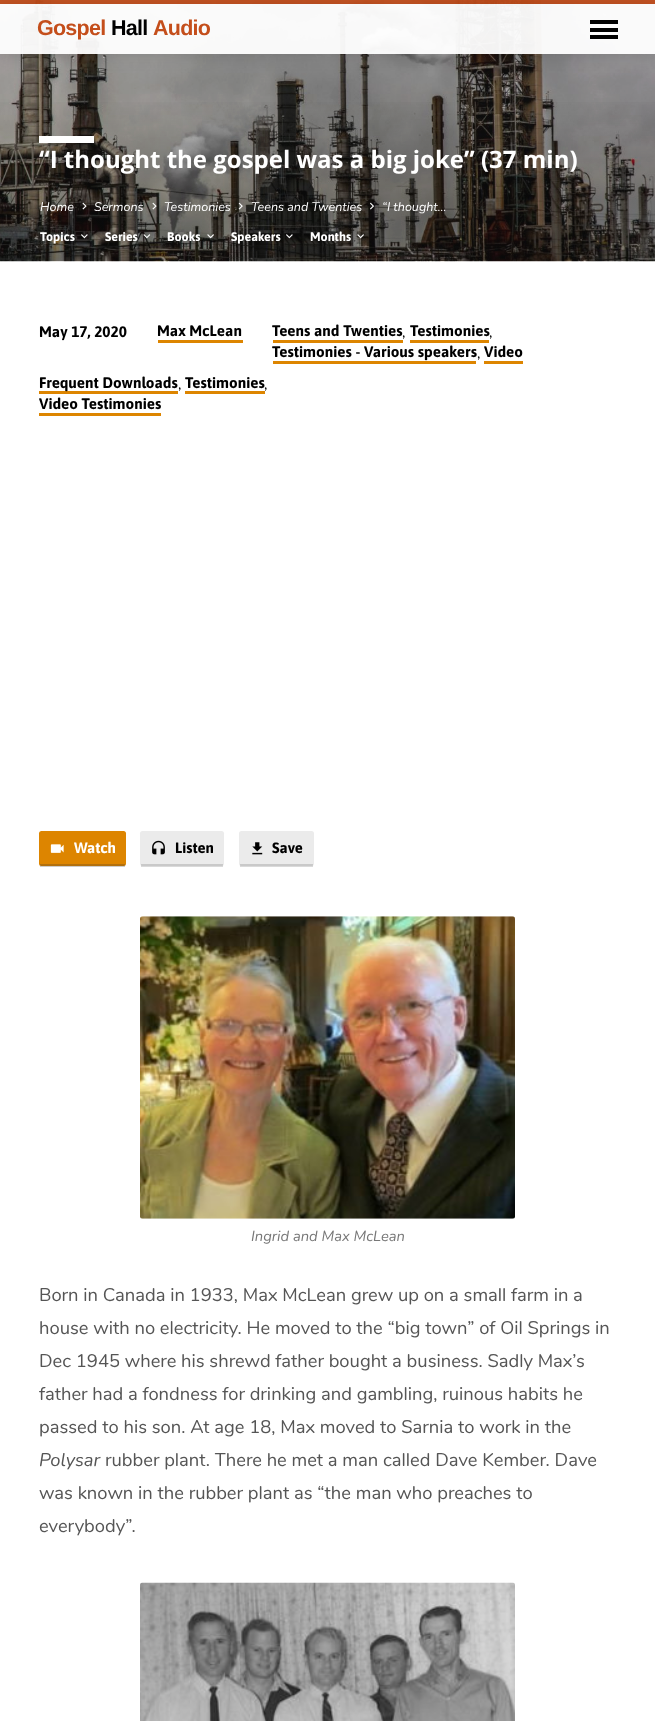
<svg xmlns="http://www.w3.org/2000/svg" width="655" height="1721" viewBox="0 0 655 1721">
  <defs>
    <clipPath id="clip1"><path d="M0 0H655V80H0ZM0 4H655V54H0Z" clip-rule="evenodd"/></clipPath>
    <linearGradient id="g1" gradientUnits="userSpaceOnUse" x1="328" y1="0" x2="328" y2="261"><stop offset="0" stop-color="#000" stop-opacity="0"/><stop offset="0.36" stop-color="#000" stop-opacity="0"/><stop offset="0.76" stop-color="#000" stop-opacity="0.28"/><stop offset="1" stop-color="#000" stop-opacity="0.28"/></linearGradient>
  </defs>
  <rect width="100%" height="100%" fill="#fff"/>
  <image x="0" y="0" width="655" height="262" href="img/1.png"/>
  <path d="M0 0h655v4H0z" fill="#c44e1bf2"/>
  <path d="M0 4h655v50H0z" fill="#fffffff2"/>
  <g clip-path="url(#clip1)">
    <path d="M0 6h655v50H0z" fill="#00000024" filter="blur(7.5px)"/>
  </g>
  <path d="M590 20h28v4H590z" fill="#000"/>
  <path d="M590 28h28v4H590z" fill="#000"/>
  <path d="M590 35h28v4H590z" fill="#000"/>
  <path d="M0 102h655v159H0z" fill="url(#g1)"/>
  <path d="M39 136h55v7H39z" fill="#fff"/>
  <image x="82" y="202" width="5" height="8" href="img/2.png"/>
  <image x="152" y="202" width="5" height="8" href="img/3.png"/>
  <image x="238" y="202" width="5" height="8" href="img/4.png"/>
  <image x="370" y="202" width="4" height="8" href="img/5.png"/>
  <image x="81" y="234" width="7" height="5" href="img/6.png"/>
  <image x="143" y="234" width="8" height="5" href="img/7.png"/>
  <image x="207" y="234" width="7" height="5" href="img/8.png"/>
  <image x="286" y="234" width="7" height="5" href="img/9.png"/>
  <image x="357" y="234" width="7" height="5" href="img/10.png"/>
  <path d="M158 340h85v3H158z" fill="#dd8500"/>
  <path d="M273 340h130v3H273z" fill="#dd8500"/>
  <path d="M410 340h79v3H410z" fill="#dd8500"/>
  <path d="M273 361h203v3H273z" fill="#dd8500"/>
  <path d="M484 361h39v3H484z" fill="#dd8500"/>
  <path d="M39 391h139v3H39z" fill="#dd8500"/>
  <path d="M185 391h80v3H185z" fill="#dd8500"/>
  <path d="M39 413h122v3H39z" fill="#dd8500"/>
  <rect x="39" y="831" width="87" height="35" rx="2.5" fill="#dd8500"/>
  <path d="M40 864h85v3H40z" fill="#32323240"/>
  <image x="50" y="844" width="14" height="9" href="img/11.png"/>
  <rect x="140" y="831" width="84" height="35" rx="2.5" fill="#ebebeb"/>
  <path d="M141 864h82v3H141z" fill="#3232322e"/>
  <image x="152" y="840" width="13" height="15" href="img/12.png"/>
  <rect x="239" y="831" width="75" height="35" rx="2.5" fill="#ebebeb"/>
  <path d="M240 864h73v3H240z" fill="#3232322e"/>
  <image x="252" y="842" width="11" height="13" href="img/13.png"/>
  <image x="140" y="916" width="375" height="303" href="img/14.png"/>
  <image x="140" y="1582" width="375" height="139" href="img/15.png"/>
  <text x="37" y="35" font-family="Arimo" font-size="21.5" font-weight="bold" letter-spacing="-0.75" fill="#c44e1b">Gospel</text>
  <text x="111" y="35" font-family="Arimo" font-size="21.5" font-weight="bold" letter-spacing="-0.75" fill="#000">Hall</text>
  <text x="153" y="35" font-family="Arimo" font-size="21.5" font-weight="bold" letter-spacing="-0.75" fill="#c44e1b">Audio</text>
  <text x="39" y="168" font-family="Open Sans" font-size="24" font-weight="bold" fill="#fff">“I thought the gospel was a big joke” (37 min)</text>
  <g font-family="Nunito" font-size="12.5" font-style="italic" fill="#fff">
    <text x="40" y="211">Home</text>
    <text x="94" y="211">Sermons</text>
    <text x="164" y="211">Testimonies</text>
    <text x="251" y="211">Teens and Twenties</text>
    <text x="382" y="211">“I thought…</text>
  </g>
  <g font-family="Asap" font-size="12.5" font-weight="bold" fill="#fff">
    <text x="40" y="241">Topics</text>
    <text x="105" y="241">Series</text>
    <text x="167" y="241">Books</text>
    <text x="231" y="241">Speakers</text>
    <text x="310" y="241">Months</text>
  </g>
  <g font-family="Asap" font-size="15.25" font-weight="bold" fill="#000">
    <text x="39" y="337">May 17, 2020</text>
    <text x="157" y="336">Max McLean</text>
    <text x="272" y="336">Teens and Twenties</text>
  </g>
  <text x="402" y="337" font-family="Nunito" font-size="15.25" fill="#000">,</text>
  <text x="410" y="336" font-family="Asap" font-size="15.25" font-weight="bold" fill="#000">Testimonies</text>
  <text x="489" y="337" font-family="Nunito" font-size="15.25" fill="#000">,</text>
  <text x="272" y="357" font-family="Asap" font-size="15.25" font-weight="bold" fill="#000">Testimonies - Various speakers</text>
  <text x="477" y="358" font-family="Nunito" font-size="15.25" fill="#000">,</text>
  <g font-family="Asap" font-size="15.25" font-weight="bold" fill="#000">
    <text x="484" y="357">Video</text>
    <text x="39" y="388">Frequent Downloads</text>
  </g>
  <text x="178" y="389" font-family="Nunito" font-size="15.25" fill="#000">,</text>
  <text x="185" y="388" font-family="Asap" font-size="15.25" font-weight="bold" fill="#000">Testimonies</text>
  <text x="264" y="389" font-family="Nunito" font-size="15.25" fill="#000">,</text>
  <text x="39" y="409" font-family="Asap" font-size="15.25" font-weight="bold" fill="#000">Video Testimonies</text>
  <text x="74" y="853" font-family="Asap" font-size="15" font-weight="bold" fill="#fff">Watch</text>
  <g font-family="Asap" font-size="15" font-weight="bold" fill="#000">
    <text x="175" y="853">Listen</text>
    <text x="272" y="853">Save</text>
  </g>
  <text x="251" y="1241" font-family="Nunito" font-size="14.75" font-style="italic" fill="#777">Ingrid and Max McLean</text>
  <g font-family="Nunito" font-size="18.4" fill="#555">
    <text x="39" y="1301">Born in Canada in 1933, Max McLean grew up on a small farm in a</text>
    <text x="39" y="1334">house with no electricity. He moved to the “big town” of Oil Springs in</text>
    <text x="39" y="1367">Dec 1945 where his shrewd father bought a business. Sadly Max’s</text>
    <text x="39" y="1400">father had a fondness for drinking and gambling, ruinous habits he</text>
    <text x="39" y="1433">passed to his son. At age 18, Max moved to Sarnia to work in the</text>
  </g>
  <text x="39" y="1466" font-family="Nunito" font-size="18.4" font-style="italic" fill="#555">Polysar</text>
  <g font-family="Nunito" font-size="18.4" fill="#555">
    <text x="105" y="1466">rubber plant. There he met a man called Dave Kember. Dave</text>
    <text x="39" y="1499">was known in the rubber plant as “the man who preaches to</text>
    <text x="39" y="1532">everybody”.</text>
  </g>
</svg>
